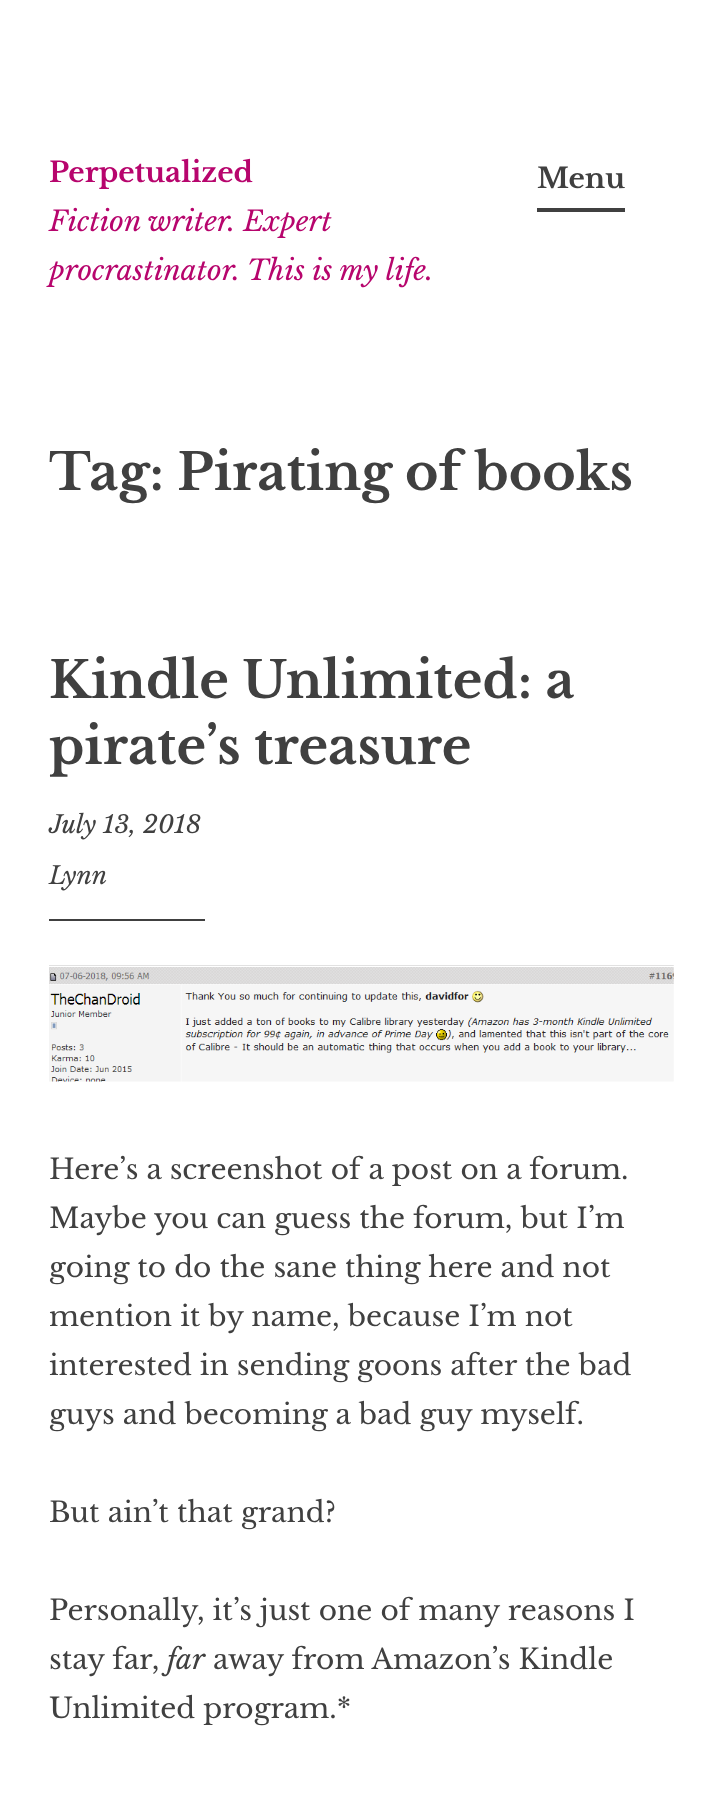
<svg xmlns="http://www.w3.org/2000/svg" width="722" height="1805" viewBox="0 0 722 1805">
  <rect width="100%" height="100%" fill="#fff"/>
  <path d="M537 208h88v4H537z" fill="#404040"/>
  <path d="M49 919h156v2H49z" fill="#404040"/>
  <image x="49" y="965" width="625" height="117" href="img/1.png"/>
  <text x="49" y="182" font-family="Libre Baskerville" font-size="28" font-weight="bold" fill="#b7056d">Perpetualized</text>
  <g font-family="Libre Baskerville" font-size="28" font-style="italic" fill="#b7056d">
    <text x="49" y="231">Fiction writer. Expert</text>
    <text x="49" y="280">procrastinator. This is my life.</text>
  </g>
  <text x="537" y="188" font-family="Libre Baskerville" font-size="28" font-weight="bold" fill="#404040">Menu</text>
  <g font-family="Libre Baskerville" font-size="50.75" font-weight="bold" fill="#404040">
    <text x="49" y="490">Tag: Pirating of books</text>
    <text x="49" y="698">Kindle Unlimited: a</text>
    <text x="49" y="764">pirate’s treasure</text>
  </g>
  <g font-family="Libre Baskerville" font-size="24.5" font-style="italic" fill="#404040">
    <text x="49" y="833">July 13, 2018</text>
    <text x="49" y="884">Lynn</text>
  </g>
  <g font-family="Libre Baskerville" font-size="28" fill="#404040">
    <text x="49" y="1179">Here’s a screenshot of a post on a forum.</text>
    <text x="49" y="1228">Maybe you can guess the forum, but I’m</text>
    <text x="49" y="1277">going to do the sane thing here and not</text>
    <text x="49" y="1326">mention it by name, because I’m not</text>
    <text x="49" y="1375">interested in sending goons after the bad</text>
    <text x="49" y="1424">guys and becoming a bad guy myself.</text>
    <text x="49" y="1522">But ain’t that grand?</text>
    <text x="49" y="1620">Personally, it’s just one of many reasons I</text>
    <text x="49" y="1669">stay far,</text>
  </g>
  <text x="167" y="1669" font-family="Libre Baskerville" font-size="28" font-style="italic" fill="#404040">far</text>
  <g font-family="Libre Baskerville" font-size="28" fill="#404040">
    <text x="213" y="1669">away from Amazon’s Kindle</text>
    <text x="49" y="1718">Unlimited program.*</text>
  </g>
</svg>
